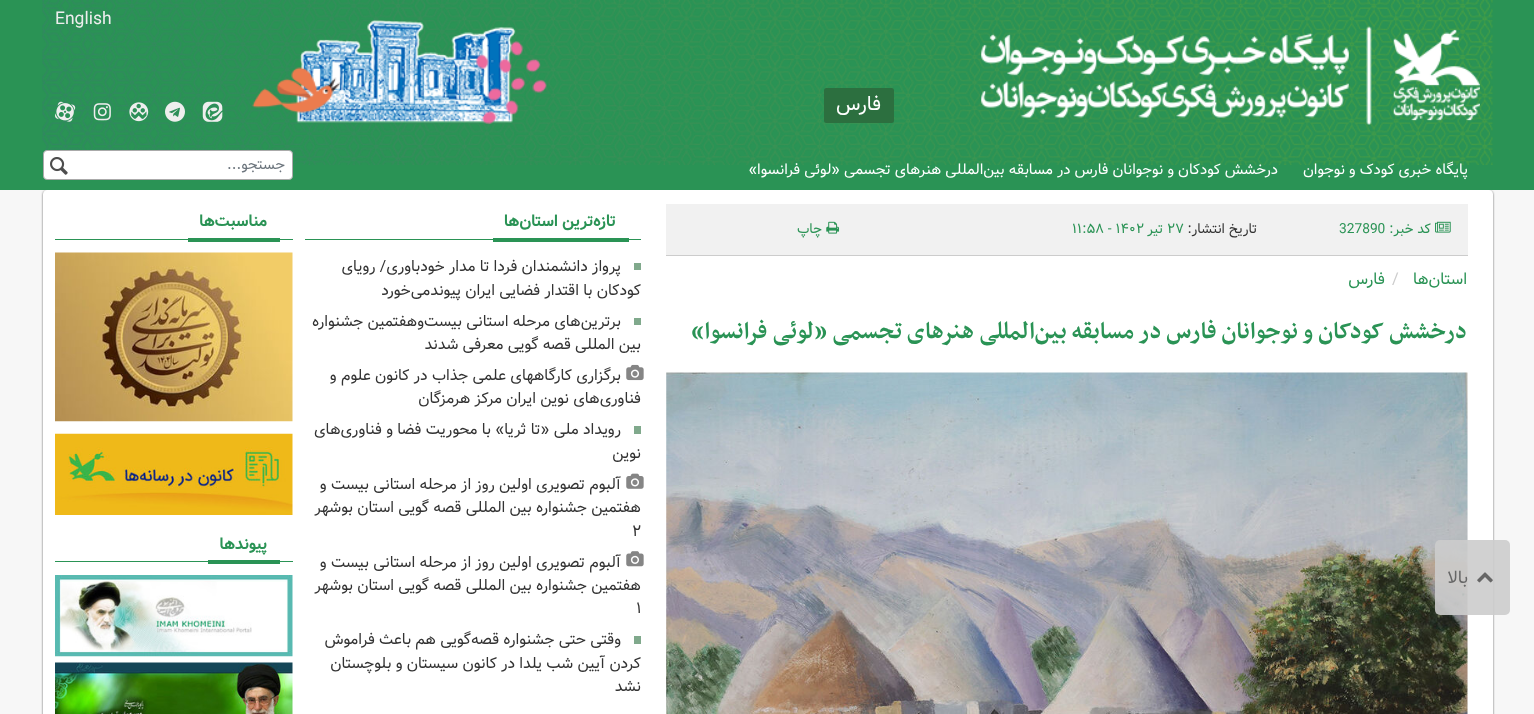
<svg xmlns="http://www.w3.org/2000/svg" width="1534" height="714" viewBox="0 0 1534 714">
  <rect width="100%" height="100%" fill="#f7f7f7"/>
  <rect x="43" y="191" width="1450" height="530" rx="4" fill="#666" filter="blur(1px)"/>
  <path d="M0 0h1534v190H0z" fill="#2a9355"/>
  <image x="42" y="0" width="1451" height="165" href="img/1.png"/>
  <image x="252" y="20" width="295" height="105" href="img/2.png"/>
  <image x="981" y="26" width="499" height="99" href="img/3.png"/>
  <rect x="824" y="88" width="70" height="35" rx="2.5" fill="#2c6f3f"/>
  <image x="202" y="101" width="21" height="21" href="img/4.png"/>
  <image x="165" y="101" width="20" height="21" href="img/5.png"/>
  <image x="129" y="102" width="20" height="20" href="img/6.png"/>
  <image x="93" y="103" width="18" height="18" href="img/7.png"/>
  <image x="55" y="101" width="21" height="21" href="img/8.png"/>
  <rect x="43.5" y="150.5" width="249" height="29" rx="3.5" fill="#fff" stroke="#aaa"/>
  <image x="50" y="157" width="18" height="18" href="img/9.png"/>
  <path d="M47 190H1489C1491 190 1493 192 1493 194V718H43V194C43 192 45 190 47 190Z" fill="#fff"/>
  <path d="M666 204h802v51H666z" fill="#f1f1f1"/>
  <path d="M666 255h802v1H666z" fill="#ccc"/>
  <image x="1435" y="221" width="16" height="12" href="img/10.png"/>
  <image x="826" y="221" width="14" height="13" href="img/11.png"/>
  <path d="M666 373h802v341H666z" fill="#f8f9fa"/>
  <image x="666" y="372" width="802" height="342" href="img/12.png"/>
  <path d="M305 239h336v1H305z" fill="#2a9355"/>
  <path d="M493 238h136v4H493z" fill="#2a9355"/>
  <path d="M634 263h7v7H634z" fill="#80a98c"/>
  <path d="M634 318h7v7H634z" fill="#80a98c"/>
  <image x="626" y="364" width="18" height="17" href="img/13.png"/>
  <path d="M634 426h7v8H634z" fill="#80a98c"/>
  <image x="626" y="473" width="18" height="16" href="img/14.png"/>
  <image x="626" y="551" width="18" height="16" href="img/15.png"/>
  <path d="M634 636h7v8H634z" fill="#80a98c"/>
  <path d="M55 239h238v1H55z" fill="#2a9355"/>
  <path d="M188 238h92v4H188z" fill="#2a9355"/>
  <image x="55" y="252" width="238" height="170" href="img/16.png"/>
  <image x="55" y="433" width="238" height="82" href="img/17.png"/>
  <path d="M55 561h238v1H55z" fill="#2a9355"/>
  <path d="M208 560h72v4H208z" fill="#2a9355"/>
  <image x="55" y="575" width="238" height="82" href="img/18.png"/>
  <image x="55" y="662" width="238" height="52" href="img/19.png"/>
  <rect x="1435" y="540" width="75" height="75" rx="5" fill="#cccccce6"/>
  <image x="1477" y="572" width="16" height="11" href="img/20.png"/>
  <g font-family="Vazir" font-size="15" direction="rtl" fill="#fff">
    <text x="1468" y="174">پایگاه خبری کودک و نوجوان</text>
    <text x="1278" y="174">درخشش کودکان و نوجوانان فارس در مسابقه بین‌المللی هنرهای تجسمی «لوئی فرانسوا»</text>
  </g>
  <text x="881" y="110" font-family="Vazir" font-size="20" direction="rtl" fill="#fff">فارس</text>
  <text x="55" y="24" font-family="Vazir" font-size="17.5" fill="#eee">English</text>
  <text x="285" y="169" font-family="Vazir" font-size="15" direction="rtl" fill="#6c757d">جستجو...</text>
  <text x="1431" y="233" font-family="Vazir" font-size="13.75" direction="rtl" fill="#2a9355">کد خبر:</text>
  <text x="1339" y="233" font-family="Vazir" font-size="13.75" fill="#2a9355">327890</text>
  <text x="1257" y="233" font-family="Vazir" font-size="13.75" direction="rtl" fill="#333">تاریخ انتشار:</text>
  <text x="1167" y="233" font-family="Vazir" font-size="13.75" fill="#2a9355">۲۷</text>
  <text x="1163" y="233" font-family="Vazir" font-size="13.75" direction="rtl" fill="#2a9355">تیر</text>
  <text x="1072" y="233" font-family="Vazir" font-size="13.75" fill="#2a9355">۱۱:۵۸ - ۱۴۰۲</text>
  <text x="822" y="233" font-family="Vazir" font-size="13.75" direction="rtl" fill="#2a9355">چاپ</text>
  <text x="1467" y="284" font-family="Vazir" font-size="16.25" direction="rtl" fill="#2a9355">استان‌ها</text>
  <text x="1392" y="284" font-family="Vazir" font-size="16.25" fill="#ccc">/</text>
  <text x="1385" y="284" font-family="Vazir" font-size="16.25" direction="rtl" fill="#2a9355">فارس</text>
  <text x="1467" y="338" font-family="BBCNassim" font-size="27.5" font-weight="bold" direction="rtl" fill="#2a9355">درخشش کودکان و نوجوانان فارس در مسابقه بین‌المللی هنرهای تجسمی «لوئی فرانسوا»</text>
  <text x="616" y="226" font-family="Vazir" font-size="16.25" font-weight="bold" direction="rtl" fill="#2a9355">تازه‌ترین استان‌ها</text>
  <g font-family="Vazir" font-size="15.6" direction="rtl" fill="#333">
    <text x="621" y="271">پرواز دانشمندان فردا تا مدار خودباوری/ رویای</text>
    <text x="641" y="295">کودکان با اقتدار فضایی ایران پیوندمی‌خورد</text>
    <text x="621" y="326">برترین‌های مرحله استانی بیست‌وهفتمین جشنواره</text>
    <text x="641" y="349">بین المللی قصه گویی معرفی شدند</text>
    <text x="621" y="380">برگزاری کارگاههای علمی جذاب در کانون علوم و</text>
    <text x="641" y="403">فناوری‌های نوین ایران مرکز هرمزگان</text>
    <text x="621" y="434">رویداد ملی «تا ثریا» با محوریت فضا و فناوری‌های</text>
    <text x="641" y="458">نوین</text>
    <text x="621" y="489">آلبوم تصویری اولین روز از مرحله استانی بیست و</text>
    <text x="641" y="512">هفتمین جشنواره بین المللی قصه گویی استان بوشهر</text>
  </g>
  <text x="632" y="536" font-family="Vazir" font-size="15.6" fill="#333">۲</text>
  <g font-family="Vazir" font-size="15.6" direction="rtl" fill="#333">
    <text x="621" y="567">آلبوم تصویری اولین روز از مرحله استانی بیست و</text>
    <text x="641" y="590">هفتمین جشنواره بین المللی قصه گویی استان بوشهر</text>
  </g>
  <text x="636" y="613" font-family="Vazir" font-size="15.6" fill="#333">۱</text>
  <g font-family="Vazir" font-size="15.6" direction="rtl" fill="#333">
    <text x="621" y="644">وقتی حتی جشنواره قصه‌گویی هم باعث فراموش</text>
    <text x="641" y="668">کردن آیین شب یلدا در کانون سیستان و بلوچستان</text>
    <text x="641" y="691">نشد</text>
  </g>
  <g font-family="Vazir" font-size="16.25" font-weight="bold" direction="rtl" fill="#2a9355">
    <text x="267" y="226">مناسبت‌ها</text>
    <text x="267" y="549">پیوندها</text>
  </g>
  <text x="1468" y="583" font-family="Vazir" font-size="17.5" direction="rtl" fill="#666">بالا</text>
</svg>
